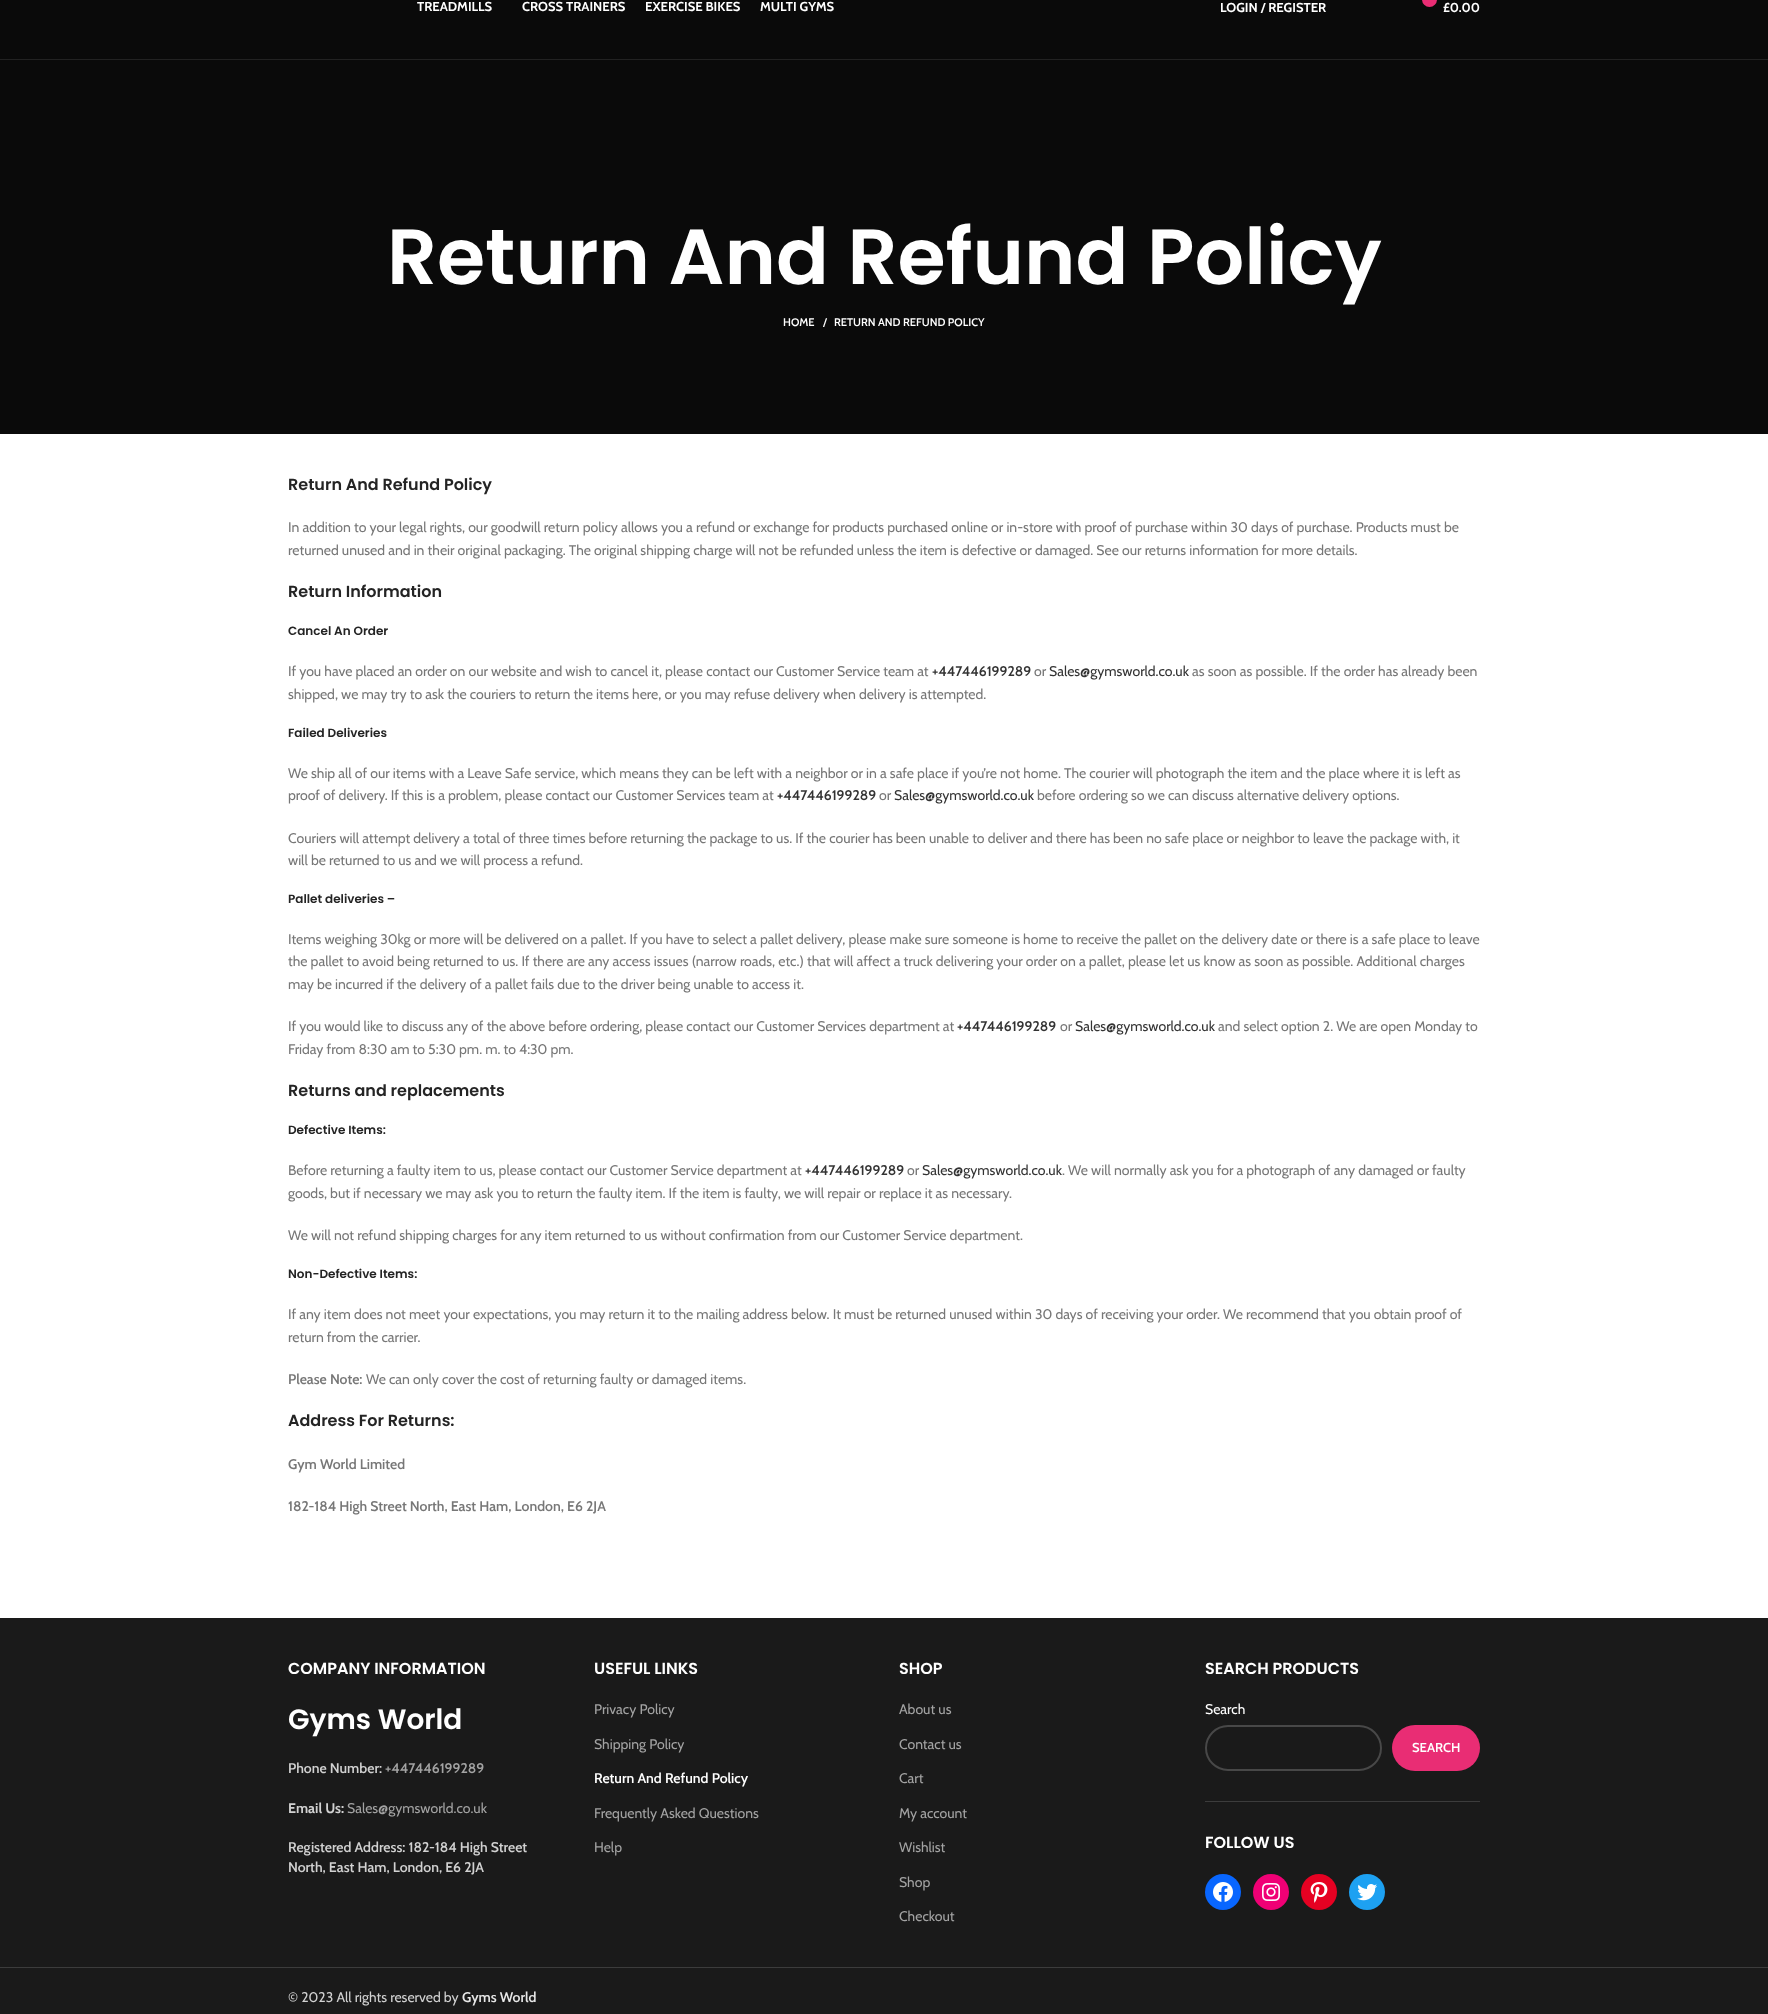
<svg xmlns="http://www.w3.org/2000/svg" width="1768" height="2014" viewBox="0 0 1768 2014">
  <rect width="100%" height="100%" fill="#fff"/>
  <path d="M0 0h1768v434H0z" fill="#0a0a0a"/>
  <path d="M0 59h1768v1H0z" fill="#222"/>
  <circle cx="1429.5" cy="-0.5" r="7.5" fill="#e92d74"/>
  <path d="M0 1618h1768v396H0z" fill="#1a1a1a"/>
  <path d="M1205 1801h275v1H1205z" fill="#3c3c3c"/>
  <rect x="1206" y="1726" width="175" height="44" rx="22" fill="none" stroke="#484848" stroke-width="2"/>
  <rect x="1392" y="1725" width="88" height="46" rx="23" fill="#e92d74"/>
  <circle cx="1223" cy="1892" r="18" fill="#0866ff"/>
  <image x="1213" y="1882" width="20" height="20" href="img/1.png"/>
  <circle cx="1271" cy="1892" r="18" fill="#f00075"/>
  <image x="1262" y="1883" width="18" height="18" href="img/2.png"/>
  <circle cx="1319" cy="1892" r="18" fill="#e60122"/>
  <image x="1310" y="1882" width="18" height="21" href="img/3.png"/>
  <circle cx="1367" cy="1892" r="18" fill="#1da1f2"/>
  <image x="1357" y="1884" width="20" height="17" href="img/4.png"/>
  <path d="M0 1967h1768v1H0z" fill="#3c3c3c"/>
  <g font-family="Cabin" font-size="13" font-weight="bold" fill="#fff">
    <text x="417" y="11">TREADMILLS</text>
    <text x="522" y="11">CROSS TRAINERS</text>
    <text x="645" y="11">EXERCISE BIKES</text>
    <text x="760" y="11">MULTI GYMS</text>
    <text x="1220" y="12">LOGIN / REGISTER</text>
    <text x="1443" y="12">£0.00</text>
  </g>
  <text x="387" y="284" font-family="Poppins" font-size="78" font-weight="600" fill="#fff">Return And Refund Policy</text>
  <g font-family="Cabin" font-size="11" font-weight="600" fill="#fff">
    <text x="783" y="326">HOME</text>
    <text x="823" y="326">/</text>
    <text x="834" y="326">RETURN AND REFUND POLICY</text>
  </g>
  <text x="288" y="490" font-family="Poppins" font-size="16" font-weight="600" fill="#242424">Return And Refund Policy</text>
  <g font-family="Cabin" font-size="14" fill="#777">
    <text x="288" y="532">In addition to your legal rights, our goodwill return policy allows you a refund or exchange for products purchased online or in-store with proof of purchase within 30 days of purchase. Products must be</text>
    <text x="288" y="555">returned unused and in their original packaging. The original shipping charge will not be refunded unless the item is defective or damaged. See our returns information for more details.</text>
  </g>
  <text x="288" y="597" font-family="Poppins" font-size="16" font-weight="600" fill="#242424">Return Information</text>
  <text x="288" y="635" font-family="Poppins" font-size="12" font-weight="600" fill="#242424">Cancel An Order</text>
  <text x="288" y="676" font-family="Cabin" font-size="14" fill="#777">If you have placed an order on our website and wish to cancel it, please contact our Customer Service team at</text>
  <text x="932" y="676" font-family="Cabin" font-size="14" font-weight="600" fill="#333">+447446199289</text>
  <text x="1034" y="676" font-family="Cabin" font-size="14" fill="#777">or</text>
  <text x="1049" y="676" font-family="Cabin" font-size="14" fill="#333">Sales@gymsworld.co.uk</text>
  <g font-family="Cabin" font-size="14" fill="#777">
    <text x="1192" y="676">as soon as possible. If the order has already been</text>
    <text x="288" y="699">shipped, we may try to ask the couriers to return the items here, or you may refuse delivery when delivery is attempted.</text>
  </g>
  <text x="288" y="737" font-family="Poppins" font-size="12" font-weight="600" fill="#242424">Failed Deliveries</text>
  <g font-family="Cabin" font-size="14" fill="#777">
    <text x="288" y="778">We ship all of our items with a Leave Safe service, which means they can be left with a neighbor or in a safe place if you’re not home. The courier will photograph the item and the place where it is left as</text>
    <text x="288" y="800">proof of delivery. If this is a problem, please contact our Customer Services team at</text>
  </g>
  <text x="777" y="800" font-family="Cabin" font-size="14" font-weight="600" fill="#333">+447446199289</text>
  <text x="879" y="800" font-family="Cabin" font-size="14" fill="#777">or</text>
  <text x="894" y="800" font-family="Cabin" font-size="14" fill="#333">Sales@gymsworld.co.uk</text>
  <g font-family="Cabin" font-size="14" fill="#777">
    <text x="1037" y="800">before ordering so we can discuss alternative delivery options.</text>
    <text x="288" y="843">Couriers will attempt delivery a total of three times before returning the package to us. If the courier has been unable to deliver and there has been no safe place or neighbor to leave the package with, it</text>
    <text x="288" y="865">will be returned to us and we will process a refund.</text>
  </g>
  <text x="288" y="903" font-family="Poppins" font-size="12" font-weight="600" fill="#242424">Pallet deliveries –</text>
  <g font-family="Cabin" font-size="14" fill="#777">
    <text x="288" y="944">Items weighing 30kg or more will be delivered on a pallet. If you have to select a pallet delivery, please make sure someone is home to receive the pallet on the delivery date or there is a safe place to leave</text>
    <text x="288" y="966">the pallet to avoid being returned to us. If there are any access issues (narrow roads, etc.) that will affect a truck delivering your order on a pallet, please let us know as soon as possible. Additional charges</text>
    <text x="288" y="989">may be incurred if the delivery of a pallet fails due to the driver being unable to access it.</text>
    <text x="288" y="1031">If you would like to discuss any of the above before ordering, please contact our Customer Services department at</text>
  </g>
  <text x="957" y="1031" font-family="Cabin" font-size="14" font-weight="600" fill="#333">+447446199289</text>
  <text x="1060" y="1031" font-family="Cabin" font-size="14" fill="#777">or</text>
  <text x="1075" y="1031" font-family="Cabin" font-size="14" fill="#333">Sales@gymsworld.co.uk</text>
  <g font-family="Cabin" font-size="14" fill="#777">
    <text x="1218" y="1031">and select option 2. We are open Monday to</text>
    <text x="288" y="1054">Friday from 8:30 am to 5:30 pm. m. to 4:30 pm.</text>
  </g>
  <text x="288" y="1096" font-family="Poppins" font-size="16" font-weight="600" fill="#242424">Returns and replacements</text>
  <text x="288" y="1134" font-family="Poppins" font-size="12" font-weight="600" fill="#242424">Defective Items:</text>
  <text x="288" y="1175" font-family="Cabin" font-size="14" fill="#777">Before returning a faulty item to us, please contact our Customer Service department at</text>
  <text x="805" y="1175" font-family="Cabin" font-size="14" font-weight="600" fill="#333">+447446199289</text>
  <text x="907" y="1175" font-family="Cabin" font-size="14" fill="#777">or</text>
  <text x="922" y="1175" font-family="Cabin" font-size="14" fill="#333">Sales@gymsworld.co.uk</text>
  <g font-family="Cabin" font-size="14" fill="#777">
    <text x="1062" y="1175">. We will normally ask you for a photograph of any damaged or faulty</text>
    <text x="288" y="1198">goods, but if necessary we may ask you to return the faulty item. If the item is faulty, we will repair or replace it as necessary.</text>
    <text x="288" y="1240">We will not refund shipping charges for any item returned to us without confirmation from our Customer Service department.</text>
  </g>
  <text x="288" y="1278" font-family="Poppins" font-size="12" font-weight="600" fill="#242424">Non-Defective Items:</text>
  <g font-family="Cabin" font-size="14" fill="#777">
    <text x="288" y="1319">If any item does not meet your expectations, you may return it to the mailing address below. It must be returned unused within 30 days of receiving your order. We recommend that you obtain proof of</text>
    <text x="288" y="1342">return from the carrier.</text>
  </g>
  <text x="288" y="1384" font-family="Cabin" font-size="14" font-weight="600" fill="#777">Please Note:</text>
  <text x="366" y="1384" font-family="Cabin" font-size="14" fill="#777">We can only cover the cost of returning faulty or damaged items.</text>
  <text x="288" y="1426" font-family="Poppins" font-size="16" font-weight="600" fill="#242424">Address For Returns:</text>
  <g font-family="Cabin" font-size="14" font-weight="600" fill="#777">
    <text x="288" y="1469">Gym World Limited</text>
    <text x="288" y="1511">182-184 High Street North, East Ham, London, E6 2JA</text>
  </g>
  <text x="288" y="1674" font-family="Poppins" font-size="16" font-weight="600" fill="#fff">COMPANY INFORMATION</text>
  <text x="288" y="1729" font-family="Poppins" font-size="28" font-weight="600" fill="#fff">Gyms World</text>
  <text x="288" y="1773" font-family="Cabin" font-size="14" font-weight="600" fill="#d1d1d1">Phone Number:</text>
  <text x="385" y="1773" font-family="Cabin" font-size="14" font-weight="600" fill="#a3a3a3">+447446199289</text>
  <text x="288" y="1813" font-family="Cabin" font-size="14" font-weight="bold" fill="#d1d1d1">Email Us:</text>
  <text x="347" y="1813" font-family="Cabin" font-size="14" fill="#a3a3a3">Sales@gymsworld.co.uk</text>
  <g font-family="Cabin" font-size="14" font-weight="600" fill="#d1d1d1">
    <text x="288" y="1852">Registered Address: 182-184 High Street</text>
    <text x="288" y="1872">North, East Ham, London, E6 2JA</text>
  </g>
  <text x="594" y="1674" font-family="Poppins" font-size="16" font-weight="600" fill="#fff">USEFUL LINKS</text>
  <g font-family="Cabin" font-size="14" fill="#a3a3a3">
    <text x="594" y="1714">Privacy Policy</text>
    <text x="594" y="1749">Shipping Policy</text>
  </g>
  <text x="594" y="1783" font-family="Cabin" font-size="14" font-weight="600" fill="#fff">Return And Refund Policy</text>
  <g font-family="Cabin" font-size="14" fill="#a3a3a3">
    <text x="594" y="1818">Frequently Asked Questions</text>
    <text x="594" y="1852">Help</text>
  </g>
  <text x="899" y="1674" font-family="Poppins" font-size="16" font-weight="600" fill="#fff">SHOP</text>
  <g font-family="Cabin" font-size="14" fill="#a3a3a3">
    <text x="899" y="1714">About us</text>
    <text x="899" y="1749">Contact us</text>
    <text x="899" y="1783">Cart</text>
    <text x="899" y="1818">My account</text>
    <text x="899" y="1852">Wishlist</text>
    <text x="899" y="1887">Shop</text>
    <text x="899" y="1921">Checkout</text>
  </g>
  <text x="1205" y="1674" font-family="Poppins" font-size="16" font-weight="600" fill="#fff">SEARCH PRODUCTS</text>
  <text x="1205" y="1714" font-family="Cabin" font-size="14" fill="#fff">Search</text>
  <text x="1412" y="1752" font-family="Cabin" font-size="13" font-weight="600" fill="#fff">SEARCH</text>
  <text x="1205" y="1848" font-family="Poppins" font-size="16" font-weight="600" fill="#fff">FOLLOW US</text>
  <text x="288" y="2002" font-family="Cabin" font-size="14" fill="#d1d1d1">© 2023 All rights reserved by</text>
  <text x="462" y="2002" font-family="Cabin" font-size="14" font-weight="600" fill="#e8e8e8">Gyms World</text>
</svg>
